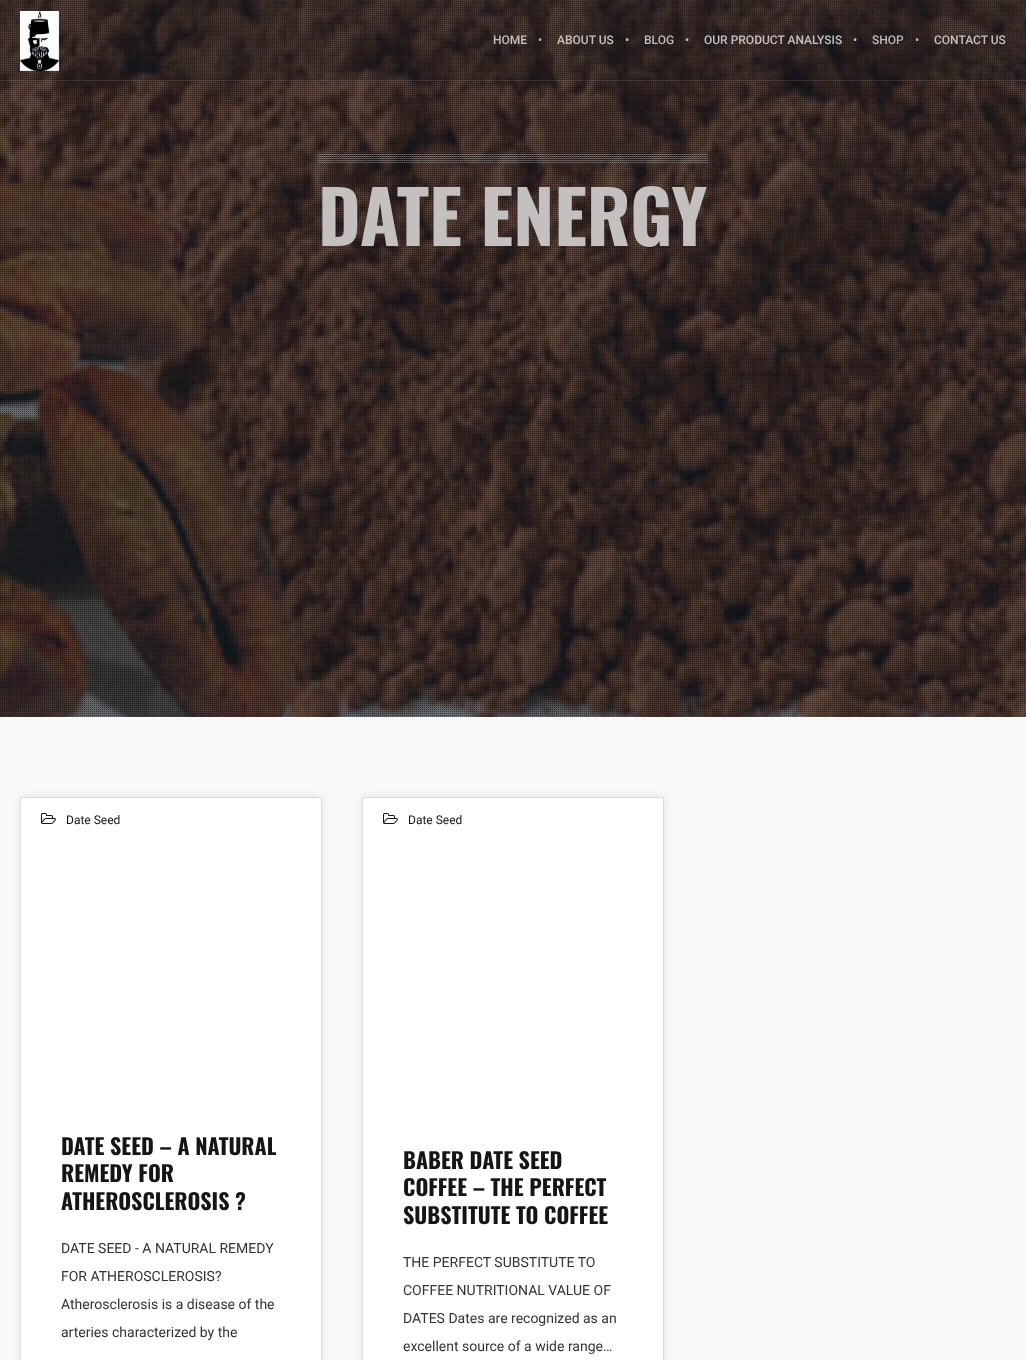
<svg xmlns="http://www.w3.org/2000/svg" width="1026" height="1360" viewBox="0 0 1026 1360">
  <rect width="100%" height="100%" fill="#fff"/>
  <image x="0" y="0" width="1026" height="717" href="img/2.png"/>
  <image x="0" y="0" width="1026" height="717" href="img/3.png"/>
  <path d="M0 0h1026v81H0z" fill="#13141640"/>
  <path d="M0 80h1026v1H0z" fill="#ffffff1a"/>
  <image x="20" y="11" width="39" height="61" href="img/1.png"/>
  <image x="318" y="154" width="390" height="9" href="img/4.png"/>
  <path d="M0 717h1026v643H0z" fill="#f9f9f9"/>
  <path d="M20 797h302v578H20z" fill="#00000017" filter="blur(5px)"/>
  <path d="M20.5 797.5h301v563H20.5z" fill="#fff" stroke="#ddd"/>
  <image x="41" y="813" width="15" height="11" href="img/5.png"/>
  <path d="M362 797h302v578H362z" fill="#00000017" filter="blur(5px)"/>
  <path d="M362.5 797.5h301v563H362.5z" fill="#fff" stroke="#ddd"/>
  <image x="383" y="813" width="15" height="11" href="img/5.png"/>
  <text x="493" y="44" font-family="Roboto" font-size="12" font-weight="500" fill="#c4c0bf">HOME</text>
  <text x="538" y="44" font-family="Roboto" font-size="12" font-weight="500" fill="#bebbbb">•</text>
  <g font-family="Roboto" font-size="12" font-weight="500" fill="#c4c0bf">
    <text x="557" y="44">ABOUT US</text>
    <text x="625" y="44">•</text>
  </g>
  <text x="644" y="44" font-family="Roboto" font-size="12" font-weight="500" fill="#bebbbb">BLOG</text>
  <g font-family="Roboto" font-size="12" font-weight="500" fill="#c4c0bf">
    <text x="685" y="44">•</text>
    <text x="704" y="44">OUR PRODUCT ANALYSIS</text>
    <text x="853" y="44">•</text>
  </g>
  <text x="872" y="44" font-family="Roboto" font-size="12" font-weight="500" fill="#bebbbb">SHOP</text>
  <g font-family="Roboto" font-size="12" font-weight="500" fill="#c4c0bf">
    <text x="915" y="44">•</text>
    <text x="934" y="44">CONTACT US</text>
  </g>
  <text x="318" y="246" font-family="Oswald" font-size="73" font-weight="bold" fill="#c4c0bf">DATE ENERGY</text>
  <text x="66" y="824" font-family="Roboto" font-size="12" fill="#151515">Date Seed</text>
  <g font-family="Oswald" font-size="22" font-weight="bold" fill="#151515">
    <text x="61" y="1155">DATE SEED – A NATURAL</text>
    <text x="61" y="1182">REMEDY FOR</text>
    <text x="61" y="1210">ATHEROSCLEROSIS ?</text>
  </g>
  <g font-family="Roboto" font-size="14" fill="#333">
    <text x="61" y="1253">DATE SEED - A NATURAL REMEDY</text>
    <text x="61" y="1281">FOR ATHEROSCLEROSIS?</text>
    <text x="61" y="1309">Atherosclerosis is a disease of the</text>
    <text x="61" y="1337">arteries characterized by the</text>
  </g>
  <text x="408" y="824" font-family="Roboto" font-size="12" fill="#151515">Date Seed</text>
  <g font-family="Oswald" font-size="22" font-weight="bold" fill="#151515">
    <text x="403" y="1169">BABER DATE SEED</text>
    <text x="403" y="1196">COFFEE – THE PERFECT</text>
    <text x="403" y="1224">SUBSTITUTE TO COFFEE</text>
  </g>
  <g font-family="Roboto" font-size="14" fill="#333">
    <text x="403" y="1267">THE PERFECT SUBSTITUTE TO</text>
    <text x="403" y="1295">COFFEE NUTRITIONAL VALUE OF</text>
    <text x="403" y="1323">DATES Dates are recognized as an</text>
    <text x="403" y="1351">excellent source of a wide range…</text>
  </g>
</svg>
